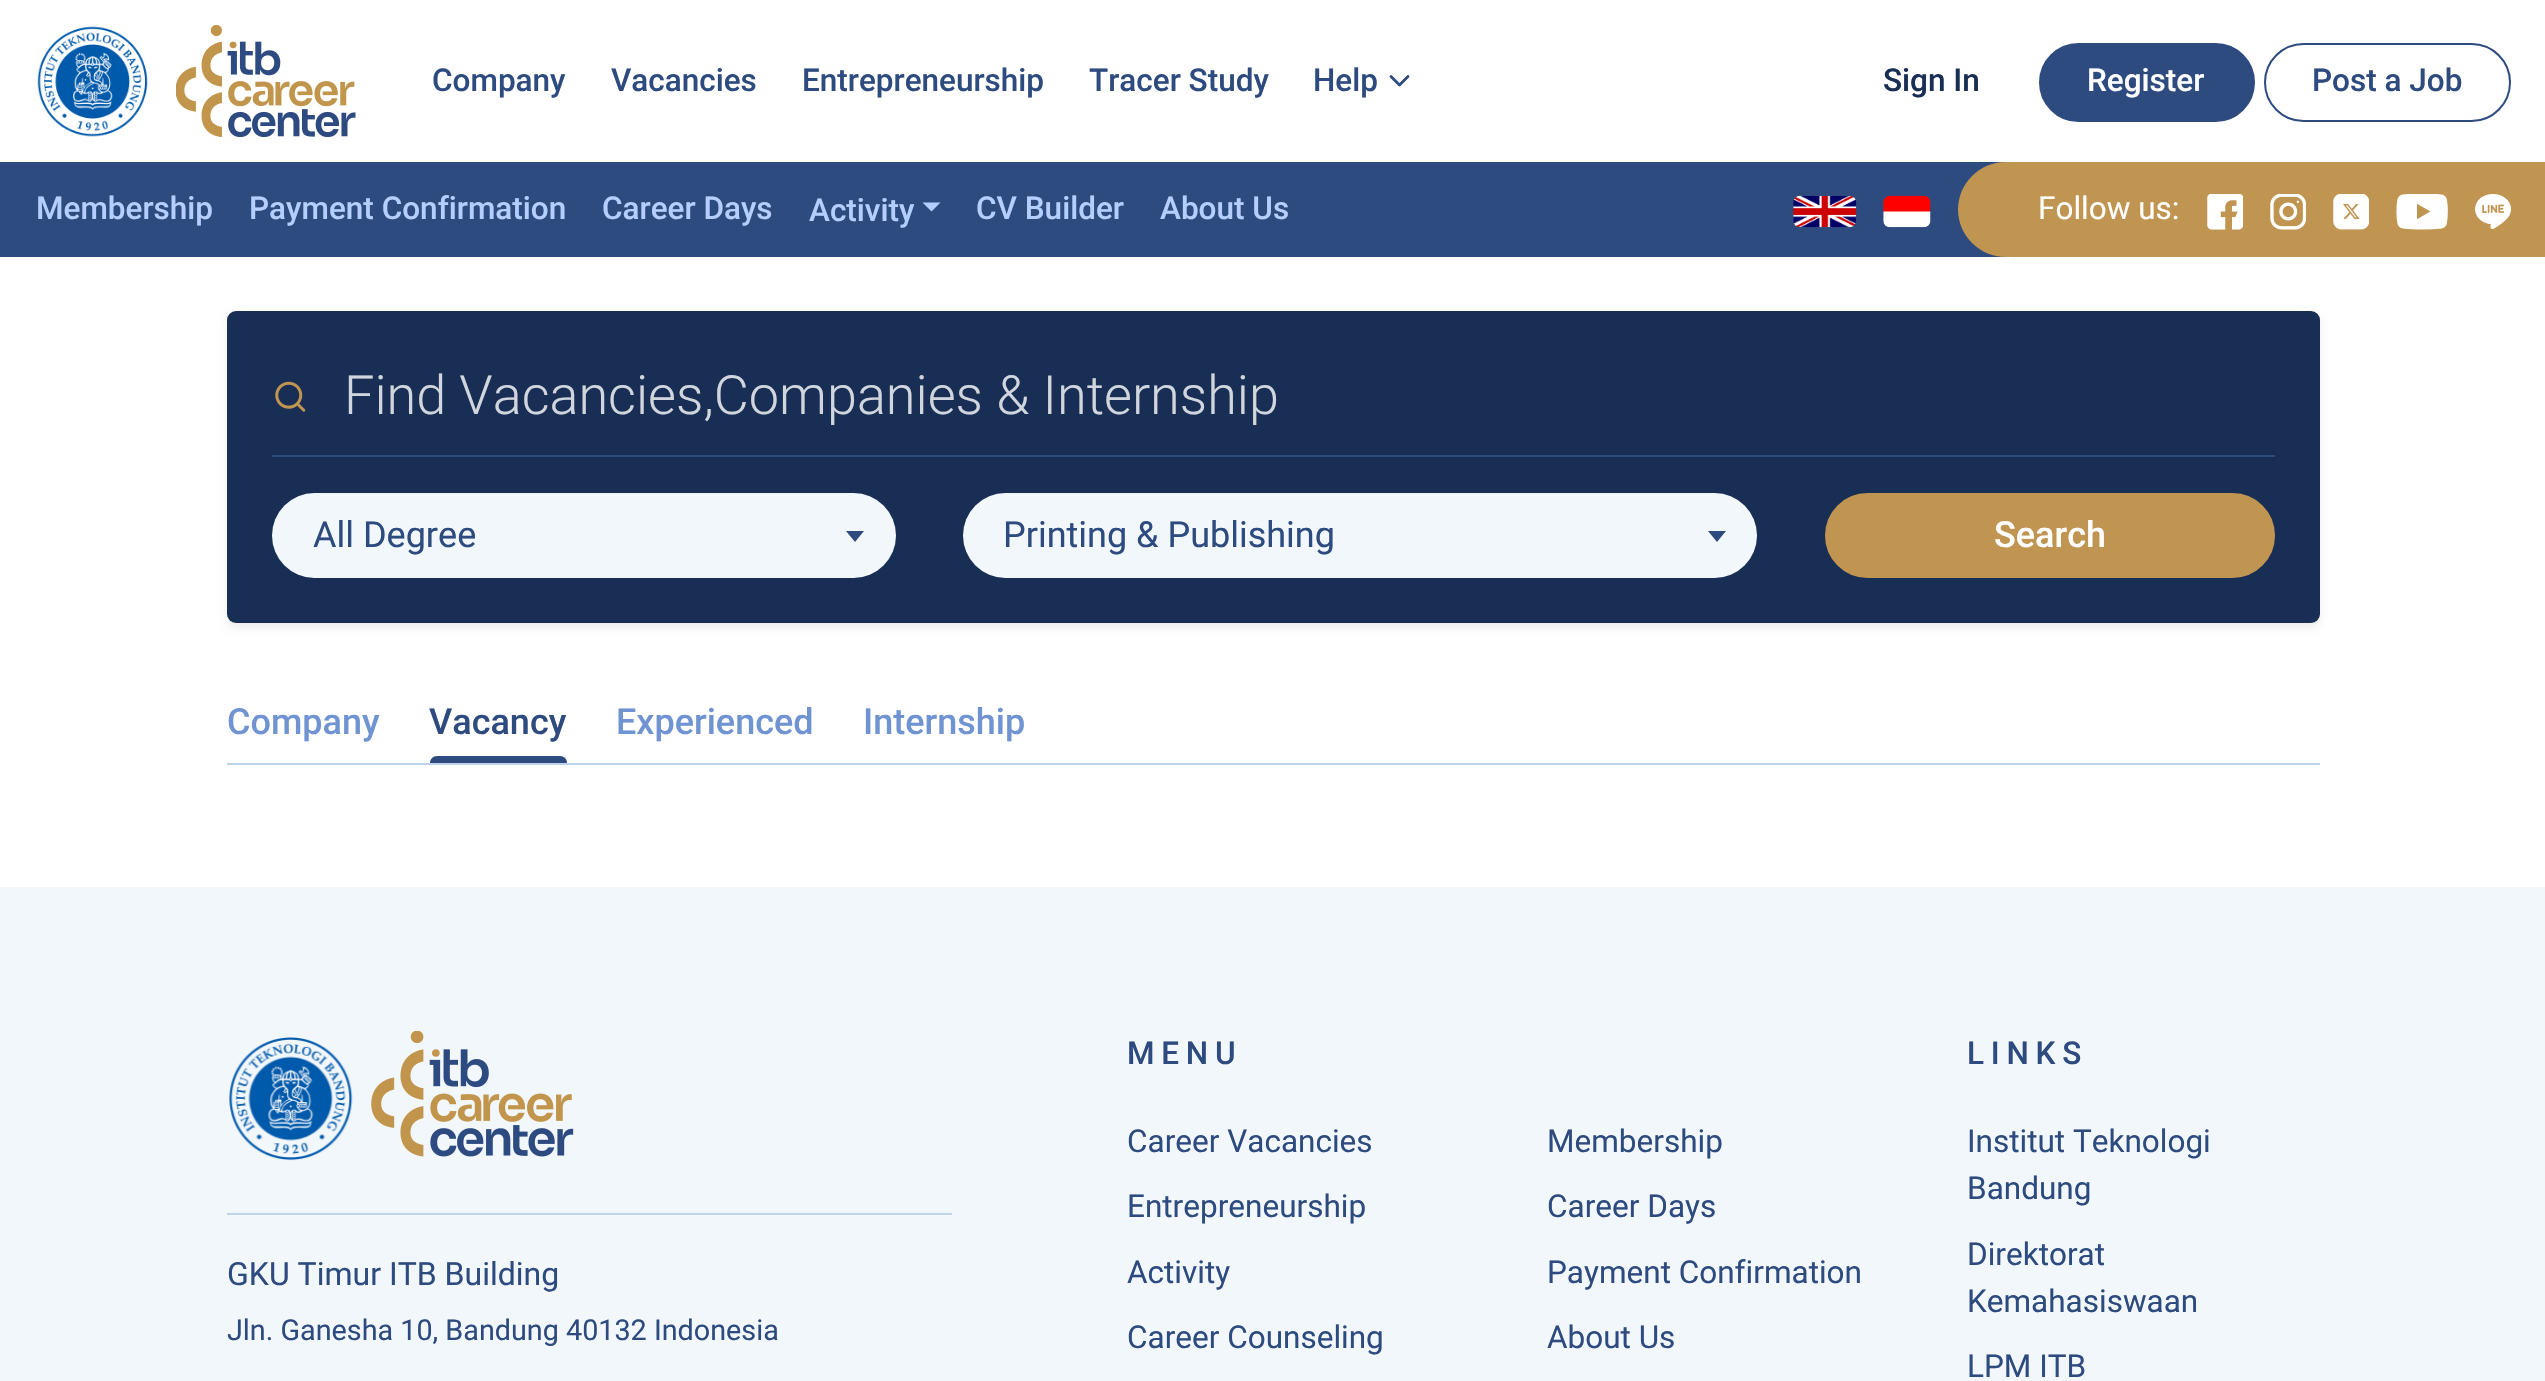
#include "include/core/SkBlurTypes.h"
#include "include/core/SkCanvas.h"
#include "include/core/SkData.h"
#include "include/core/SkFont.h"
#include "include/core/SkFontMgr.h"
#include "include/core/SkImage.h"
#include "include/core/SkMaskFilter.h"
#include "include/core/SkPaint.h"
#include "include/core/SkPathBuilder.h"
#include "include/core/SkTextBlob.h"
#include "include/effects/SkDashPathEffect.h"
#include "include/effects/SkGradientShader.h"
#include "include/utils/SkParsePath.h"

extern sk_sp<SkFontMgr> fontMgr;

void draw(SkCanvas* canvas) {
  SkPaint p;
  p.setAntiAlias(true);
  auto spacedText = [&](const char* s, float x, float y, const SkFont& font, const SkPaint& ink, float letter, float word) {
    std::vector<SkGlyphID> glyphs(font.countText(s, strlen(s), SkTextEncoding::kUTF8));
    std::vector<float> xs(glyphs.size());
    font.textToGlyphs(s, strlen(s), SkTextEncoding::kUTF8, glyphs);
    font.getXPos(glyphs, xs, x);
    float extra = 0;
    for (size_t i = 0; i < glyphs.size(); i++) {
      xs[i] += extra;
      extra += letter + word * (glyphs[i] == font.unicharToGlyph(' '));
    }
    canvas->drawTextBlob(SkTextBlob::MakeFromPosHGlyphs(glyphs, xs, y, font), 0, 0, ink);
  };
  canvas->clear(SK_ColorWHITE);
  canvas->drawImageRect(SkImages::DeferredFromEncodedData(SkData::MakeFromFileName("images/1.png")), SkRect::MakeLTRB(37, 26, 148, 137), SkSamplingOptions());
  canvas->drawImageRect(SkImages::DeferredFromEncodedData(SkData::MakeFromFileName("images/2.png")), SkRect::MakeLTRB(176, 25, 356, 137), SkSamplingOptions());
  p.setStyle(SkPaint::kStroke_Style);
  p.setStrokeWidth(2.8f);
  p.setStrokeCap(SkPaint::kRound_Cap);
  p.setStrokeJoin(SkPaint::kRound_Join);
  p.setColor(SkColorSetRGB(45, 74, 129));
  canvas->drawPath(SkPathBuilder().moveTo(1391, 76.5f).lineTo(1399.5f, 85).lineTo(1408, 76.5f).detach(), p);
  p.setStyle(SkPaint::kFill_Style);
  p.setColor(SkColorSetRGB(46, 75, 127));
  canvas->drawRoundRect(SkRect::MakeLTRB(2040, 44, 2254, 121), 38.5f, 38.5f, p);
  p.setStyle(SkPaint::kStroke_Style);
  p.setStrokeWidth(2);
  p.setStrokeCap(SkPaint::kButt_Cap);
  p.setStrokeJoin(SkPaint::kMiter_Join);
  canvas->drawRoundRect(SkRect::MakeLTRB(2040, 44, 2254, 121), 38.5f, 38.5f, p);
  canvas->drawRoundRect(SkRect::MakeLTRB(2265, 44, 2510, 121), 38.5f, 38.5f, p);
  p.setStyle(SkPaint::kFill_Style);
  canvas->drawRect(SkRect::MakeLTRB(0, 162, 2005, 257), p);
  p.setColor(SkColorSetRGB(180, 206, 255));
  canvas->drawPath(SkPathBuilder().moveTo(922.5f, 202.5f).lineTo(940.5f, 202.5f).lineTo(931.5f, 211.5f).close().detach(), p);
  canvas->drawImageRect(SkImages::DeferredFromEncodedData(SkData::MakeFromFileName("images/3.png")), SkRect::MakeLTRB(1793, 195, 1857, 228), SkSamplingOptions());
  canvas->drawImageRect(SkImages::DeferredFromEncodedData(SkData::MakeFromFileName("images/4.png")), SkRect::MakeLTRB(1883, 195, 1931, 228), SkSamplingOptions());
  p.setColor(SkColorSetRGB(192, 148, 81));
  canvas->drawPath(SkPathBuilder().moveTo(2005.5f, 162).lineTo(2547, 162).lineTo(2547, 257).lineTo(2005.5f, 257).cubicTo(1979.5f, 257, 1958, 235.5f, 1958, 209.5f).cubicTo(1958, 183.5f, 1979.5f, 162, 2005.5f, 162).close().detach(), p);
  canvas->drawImageRect(SkImages::DeferredFromEncodedData(SkData::MakeFromFileName("images/5.png")), SkRect::MakeLTRB(2207, 194, 2243, 230), SkSamplingOptions());
  canvas->drawImageRect(SkImages::DeferredFromEncodedData(SkData::MakeFromFileName("images/6.png")), SkRect::MakeLTRB(2270, 194, 2306, 230), SkSamplingOptions());
  canvas->drawImageRect(SkImages::DeferredFromEncodedData(SkData::MakeFromFileName("images/7.png")), SkRect::MakeLTRB(2333, 194, 2369, 230), SkSamplingOptions());
  canvas->drawImageRect(SkImages::DeferredFromEncodedData(SkData::MakeFromFileName("images/8.png")), SkRect::MakeLTRB(2396, 194, 2448, 230), SkSamplingOptions());
  canvas->drawImageRect(SkImages::DeferredFromEncodedData(SkData::MakeFromFileName("images/9.png")), SkRect::MakeLTRB(2475, 194, 2511, 229), SkSamplingOptions());
  p.setColor(SkColorSetARGB(18, 0, 0, 0));
  p.setMaskFilter(SkMaskFilter::MakeBlur(kNormal_SkBlurStyle, 4.5f));
  canvas->drawRoundRect(SkRect::MakeLTRB(227, 315, 2320, 628), 9, 9, p);
  p.setMaskFilter(nullptr);
  p.setColor(SkColorSetRGB(25, 46, 84));
  canvas->drawRoundRect(SkRect::MakeLTRB(227, 311, 2320, 623), 9, 9, p);
  canvas->drawImageRect(SkImages::DeferredFromEncodedData(SkData::MakeFromFileName("images/10.png")), SkRect::MakeLTRB(275, 381, 306, 412), SkSamplingOptions());
  p.setColor(SkColorSetRGB(46, 75, 127));
  canvas->drawRect(SkRect::MakeLTRB(272, 455, 2275, 457), p);
  p.setColor(SkColorSetRGB(242, 247, 252));
  canvas->drawRoundRect(SkRect::MakeLTRB(272, 493, 896, 578), 42.5f, 42.5f, p);
  p.setColor(SkColorSetRGB(46, 75, 127));
  canvas->drawPath(SkPathBuilder().moveTo(846, 531).lineTo(864, 531).lineTo(855, 542).close().detach(), p);
  p.setColor(SkColorSetRGB(242, 247, 252));
  canvas->drawRoundRect(SkRect::MakeLTRB(963, 493, 1757, 578), 42.5f, 42.5f, p);
  p.setColor(SkColorSetRGB(46, 75, 127));
  canvas->drawPath(SkPathBuilder().moveTo(1708, 531).lineTo(1726, 531).lineTo(1717, 542).close().detach(), p);
  p.setColor(SkColorSetRGB(192, 148, 81));
  canvas->drawRoundRect(SkRect::MakeLTRB(1826, 494, 2274, 577), 41.5f, 41.5f, p);
  p.setStyle(SkPaint::kStroke_Style);
  canvas->drawRoundRect(SkRect::MakeLTRB(1826, 494, 2274, 577), 41.5f, 41.5f, p);
  p.setStyle(SkPaint::kFill_Style);
  p.setColor(SkColorSetRGB(190, 212, 234));
  canvas->drawRect(SkRect::MakeLTRB(227, 763, 2320, 765), p);
  p.setColor(SkColorSetRGB(46, 75, 127));
  canvas->drawPath(SkPathBuilder().moveTo(437, 756).lineTo(560, 756).cubicTo(564, 756, 567, 759, 567, 763).lineTo(430, 763).cubicTo(430, 759, 433, 756, 437, 756).close().detach(), p);
  p.setColor(SkColorSetRGB(242, 247, 252));
  canvas->drawRect(SkRect::MakeLTRB(0, 887, 2545, 1381), p);
  canvas->drawImageRect(SkImages::DeferredFromEncodedData(SkData::MakeFromFileName("images/11.png")), SkRect::MakeLTRB(229, 1037, 353, 1161), SkSamplingOptions());
  canvas->drawImageRect(SkImages::DeferredFromEncodedData(SkData::MakeFromFileName("images/12.png")), SkRect::MakeLTRB(371, 1031, 574, 1157), SkSamplingOptions());
  p.setColor(SkColorSetRGB(190, 212, 234));
  canvas->drawRect(SkRect::MakeLTRB(227, 1213, 952, 1215), p);
  SkFont font1(fontMgr->matchFamilyStyle("Roboto", SkFontStyle(500, SkFontStyle::kNormal_Width, SkFontStyle::kUpright_Slant)), 31.5f);
  font1.setSubpixel(true);
  p.setColor(SkColorSetRGB(46, 75, 127));
  canvas->drawString("Company", 432, 91, font1, p);
  canvas->drawString("Vacancies", 611, 91, font1, p);
  canvas->drawString("Entrepreneurship", 802, 91, font1, p);
  canvas->drawString("Tracer Study", 1089, 91, font1, p);
  canvas->drawString("Help", 1313, 91, font1, p);
  p.setColor(SkColorSetRGB(25, 46, 84));
  canvas->drawString("Sign In", 1883, 91, font1, p);
  p.setColor(SK_ColorWHITE);
  canvas->drawString("Register", 2087, 91, font1, p);
  p.setColor(SkColorSetRGB(46, 75, 127));
  canvas->drawString("Post a Job", 2312, 91, font1, p);
  p.setColor(SkColorSetRGB(180, 206, 255));
  canvas->drawString("Membership", 36, 219, font1, p);
  canvas->drawString("Payment Confirmation", 249, 219, font1, p);
  canvas->drawString("Career Days", 602, 219, font1, p);
  canvas->drawString("Activity", 809, 221, font1, p);
  canvas->drawString("CV Builder", 976, 219, font1, p);
  canvas->drawString("About Us", 1160, 219, font1, p);
  SkFont font2(fontMgr->matchFamilyStyle("Roboto", SkFontStyle::Normal()), 31.5f);
  font2.setSubpixel(true);
  p.setColor(SK_ColorWHITE);
  canvas->drawString("Follow us:", 2038, 219, font2, p);
  SkFont font3(fontMgr->matchFamilyStyle("Roboto", SkFontStyle(300, SkFontStyle::kNormal_Width, SkFontStyle::kUpright_Slant)), 54);
  font3.setSubpixel(true);
  p.setColor(SkColorSetRGB(209, 213, 221));
  canvas->drawString("Find Vacancies,Companies & Internship", 344, 414, font3, p);
  SkFont font4(fontMgr->matchFamilyStyle("Roboto", SkFontStyle::Normal()), 36);
  font4.setSubpixel(true);
  p.setColor(SkColorSetRGB(46, 75, 127));
  canvas->drawString("All Degree", 313, 547, font4, p);
  canvas->drawString("Printing & Publishing", 1003, 547, font4, p);
  SkFont font5(fontMgr->matchFamilyStyle("Roboto", SkFontStyle(500, SkFontStyle::kNormal_Width, SkFontStyle::kUpright_Slant)), 36);
  font5.setSubpixel(true);
  p.setColor(SK_ColorWHITE);
  canvas->drawString("Search", 1994, 547, font5, p);
  p.setColor(SkColorSetRGB(112, 148, 210));
  canvas->drawString("Company", 227, 734, font5, p);
  p.setColor(SkColorSetRGB(46, 75, 127));
  canvas->drawString("Vacancy", 429, 734, font5, p);
  p.setColor(SkColorSetRGB(112, 148, 210));
  canvas->drawString("Experienced", 616, 734, font5, p);
  canvas->drawString("Internship", 863, 734, font5, p);
  SkFont font6(fontMgr->matchFamilyStyle("Roboto", SkFontStyle::Normal()), 32);
  font6.setSubpixel(true);
  p.setColor(SkColorSetRGB(46, 75, 127));
  canvas->drawString("GKU Timur ITB Building", 227, 1285, font6, p);
  SkFont font7(fontMgr->matchFamilyStyle("Roboto", SkFontStyle::Normal()), 28.75f);
  font7.setSubpixel(true);
  canvas->drawString("Jln. Ganesha 10, Bandung 40132 Indonesia", 227, 1340, font7, p);
  spacedText("MENU", 1127, 1064, font1, p, 6.75f, 0);
  canvas->drawString("Career Vacancies", 1127, 1152, font2, p);
  canvas->drawString("Entrepreneurship", 1127, 1217, font2, p);
  canvas->drawString("Activity", 1127, 1283, font2, p);
  canvas->drawString("Career Counseling", 1127, 1348, font2, p);
  canvas->drawString("Membership", 1547, 1152, font2, p);
  canvas->drawString("Career Days", 1547, 1217, font2, p);
  canvas->drawString("Payment Confirmation", 1547, 1283, font2, p);
  canvas->drawString("About Us", 1547, 1348, font2, p);
  spacedText("LINKS", 1967, 1064, font1, p, 6.75f, 0);
  canvas->drawString("Institut Teknologi", 1967, 1152, font2, p);
  canvas->drawString("Bandung", 1967, 1199, font2, p);
  canvas->drawString("Direktorat", 1967, 1265, font2, p);
  canvas->drawString("Kemahasiswaan", 1967, 1312, font2, p);
  canvas->drawString("LPM ITB", 1967, 1377, font2, p);
}
